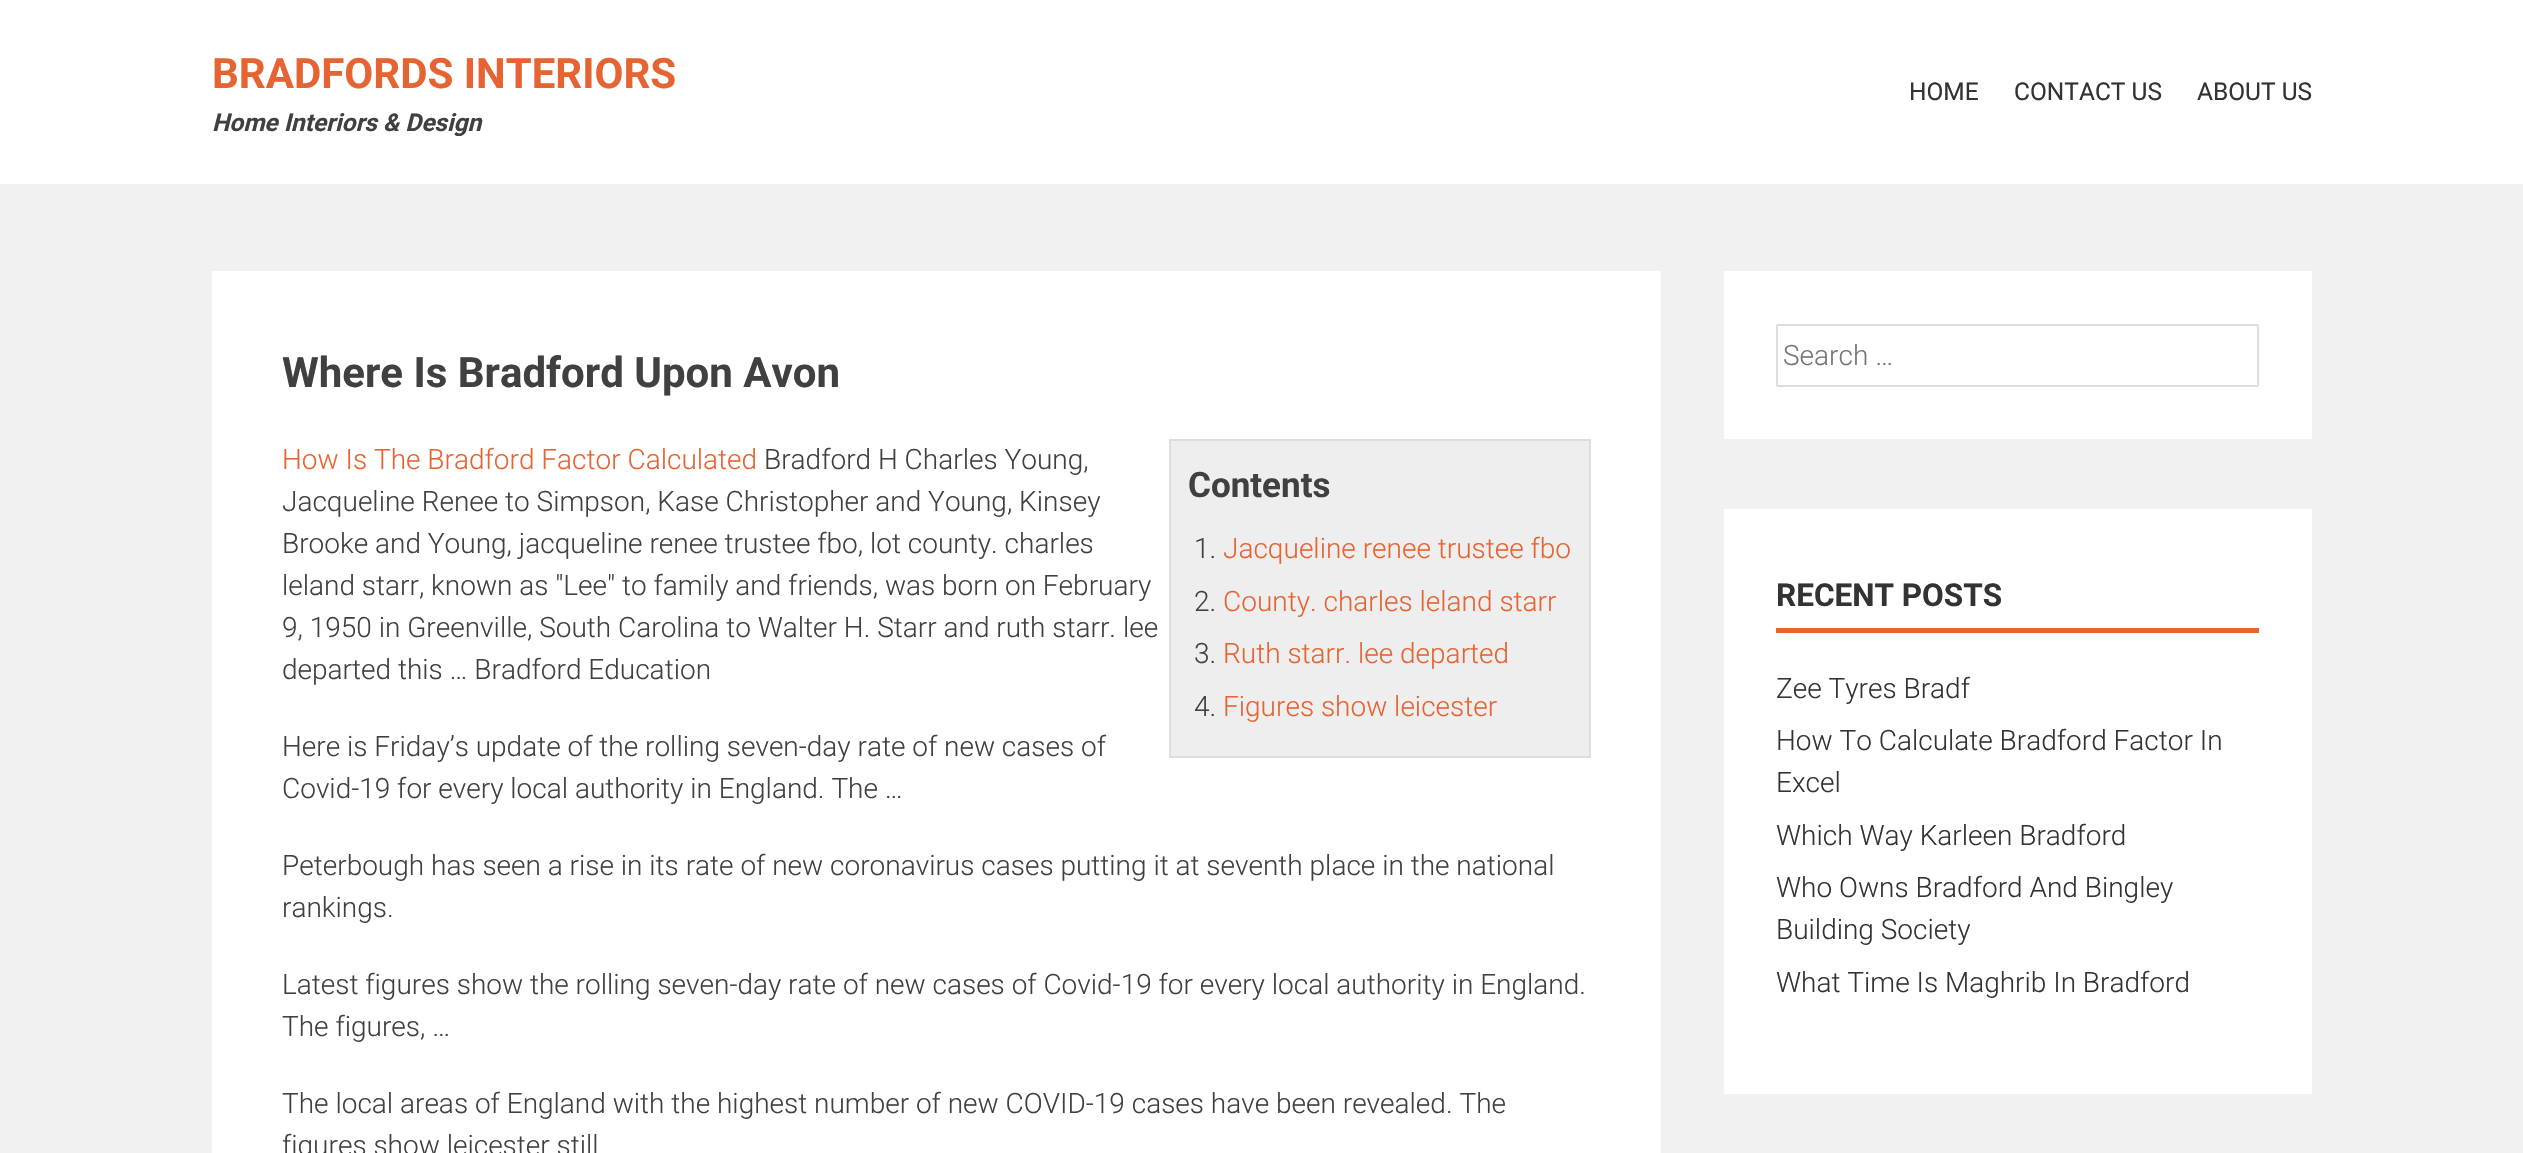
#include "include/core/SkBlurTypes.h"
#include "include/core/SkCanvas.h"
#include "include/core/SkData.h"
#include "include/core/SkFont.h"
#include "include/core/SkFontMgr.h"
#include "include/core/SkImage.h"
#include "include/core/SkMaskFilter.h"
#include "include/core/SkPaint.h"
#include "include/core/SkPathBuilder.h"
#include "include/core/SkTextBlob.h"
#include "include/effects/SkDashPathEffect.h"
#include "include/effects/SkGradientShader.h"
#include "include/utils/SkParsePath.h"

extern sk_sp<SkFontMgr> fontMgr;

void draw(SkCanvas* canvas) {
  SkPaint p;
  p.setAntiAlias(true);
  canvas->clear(SkColorSetRGB(241, 241, 241));
  p.setColor(SK_ColorWHITE);
  canvas->drawRect(SkRect::MakeLTRB(0, 0, 2523, 184), p);
  canvas->drawRect(SkRect::MakeLTRB(212, 271, 1661, 1153), p);
  p.setColor(SkColorSetRGB(238, 238, 238));
  canvas->drawRect(SkRect::MakeLTRB(1170, 440, 1590, 757), p);
  p.setStyle(SkPaint::kStroke_Style);
  p.setStrokeWidth(2);
  p.setColor(SkColorSetRGB(221, 221, 221));
  canvas->drawRect(SkRect::MakeLTRB(1170, 440, 1590, 757), p);
  p.setStyle(SkPaint::kFill_Style);
  p.setColor(SK_ColorWHITE);
  canvas->drawRect(SkRect::MakeLTRB(1724, 271, 2312, 439), p);
  p.setStyle(SkPaint::kStroke_Style);
  p.setColor(SkColorSetRGB(221, 221, 221));
  canvas->drawRoundRect(SkRect::MakeLTRB(1777, 325, 2258, 386), 1, 1, p);
  p.setStyle(SkPaint::kFill_Style);
  p.setColor(SK_ColorWHITE);
  canvas->drawRect(SkRect::MakeLTRB(1724, 509, 2312, 1094), p);
  p.setColor(SkColorSetRGB(230, 100, 50));
  canvas->drawRect(SkRect::MakeLTRB(1776, 628, 2259, 633), p);
  SkFont font1(fontMgr->matchFamilyStyle("Roboto", SkFontStyle::Bold()), 42);
  font1.setSubpixel(true);
  canvas->drawString("BRADFORDS INTERIORS", 212, 88, font1, p);
  SkFont font2(fontMgr->matchFamilyStyle("Roboto", SkFontStyle::BoldItalic()), 24.5f);
  font2.setSubpixel(true);
  p.setColor(SkColorSetRGB(64, 64, 64));
  canvas->drawString("Home Interiors & Design", 212, 131, font2, p);
  SkFont font3(fontMgr->matchFamilyStyle("Roboto", SkFontStyle::Normal()), 24.5f);
  font3.setSubpixel(true);
  p.setColor(SkColorSetRGB(51, 51, 51));
  canvas->drawString("HOME", 1909, 100, font3, p);
  canvas->drawString("CONTACT US", 2014, 100, font3, p);
  canvas->drawString("ABOUT US", 2197, 100, font3, p);
  p.setColor(SkColorSetRGB(64, 64, 64));
  canvas->drawString("Where Is Bradford Upon Avon", 282, 387, font1, p);
  SkFont font4(fontMgr->matchFamilyStyle("Roboto", SkFontStyle(300, SkFontStyle::kNormal_Width, SkFontStyle::kUpright_Slant)), 28);
  font4.setSubpixel(true);
  p.setColor(SkColorSetRGB(230, 100, 50));
  canvas->drawString("How Is The Bradford Factor Calculated", 282, 469, font4, p);
  p.setColor(SkColorSetRGB(64, 64, 64));
  canvas->drawString("Bradford H Charles Young,", 764, 469, font4, p);
  canvas->drawString("Jacqueline Renee to Simpson, Kase Christopher and Young, Kinsey", 282, 511, font4, p);
  canvas->drawString("Brooke and Young, jacqueline renee trustee fbo, lot county. charles", 282, 553, font4, p);
  canvas->drawString("leland starr, known as \"Lee\" to family and friends, was born on February", 282, 595, font4, p);
  canvas->drawString("9, 1950 in Greenville, South Carolina to Walter H. Starr and ruth starr. lee", 282, 637, font4, p);
  canvas->drawString("departed this … Bradford Education", 282, 679, font4, p);
  SkFont font5(fontMgr->matchFamilyStyle("Roboto", SkFontStyle::Bold()), 35);
  font5.setSubpixel(true);
  canvas->drawString("Contents", 1188, 497, font5, p);
  canvas->drawString("1.", 1194, 558, font4, p);
  p.setColor(SkColorSetRGB(230, 100, 50));
  canvas->drawString("Jacqueline renee trustee fbo", 1223, 558, font4, p);
  p.setColor(SkColorSetRGB(64, 64, 64));
  canvas->drawString("2.", 1194, 611, font4, p);
  p.setColor(SkColorSetRGB(230, 100, 50));
  canvas->drawString("County. charles leland starr", 1223, 611, font4, p);
  p.setColor(SkColorSetRGB(64, 64, 64));
  canvas->drawString("3.", 1194, 663, font4, p);
  p.setColor(SkColorSetRGB(230, 100, 50));
  canvas->drawString("Ruth starr. lee departed", 1223, 663, font4, p);
  p.setColor(SkColorSetRGB(64, 64, 64));
  canvas->drawString("4.", 1194, 716, font4, p);
  p.setColor(SkColorSetRGB(230, 100, 50));
  canvas->drawString("Figures show leicester", 1223, 716, font4, p);
  p.setColor(SkColorSetRGB(64, 64, 64));
  canvas->drawString("Here is Friday’s update of the rolling seven-day rate of new cases of", 282, 756, font4, p);
  canvas->drawString("Covid-19 for every local authority in England. The …", 282, 798, font4, p);
  canvas->drawString("Peterbough has seen a rise in its rate of new coronavirus cases putting it at seventh place in the national", 282, 875, font4, p);
  canvas->drawString("rankings.", 282, 917, font4, p);
  canvas->drawString("Latest figures show the rolling seven-day rate of new cases of Covid-19 for every local authority in England.", 282, 994, font4, p);
  canvas->drawString("The figures, …", 282, 1036, font4, p);
  canvas->drawString("The local areas of England with the highest number of new COVID-19 cases have been revealed. The", 282, 1113, font4, p);
  canvas->drawString("figures show leicester still", 282, 1155, font4, p);
  p.setColor(SkColorSetRGB(117, 117, 117));
  canvas->drawString("Search …", 1783, 365, font4, p);
  SkFont font6(fontMgr->matchFamilyStyle("Roboto", SkFontStyle::Bold()), 31.5f);
  font6.setSubpixel(true);
  p.setColor(SkColorSetRGB(51, 51, 51));
  canvas->drawString("RECENT POSTS", 1776, 606, font6, p);
  canvas->drawString("Zee Tyres Bradf", 1776, 698, font4, p);
  canvas->drawString("How To Calculate Bradford Factor In", 1776, 750, font4, p);
  canvas->drawString("Excel", 1776, 792, font4, p);
  canvas->drawString("Which Way Karleen Bradford", 1776, 845, font4, p);
  canvas->drawString("Who Owns Bradford And Bingley", 1776, 897, font4, p);
  canvas->drawString("Building Society", 1776, 939, font4, p);
  canvas->drawString("What Time Is Maghrib In Bradford", 1776, 992, font4, p);
}
